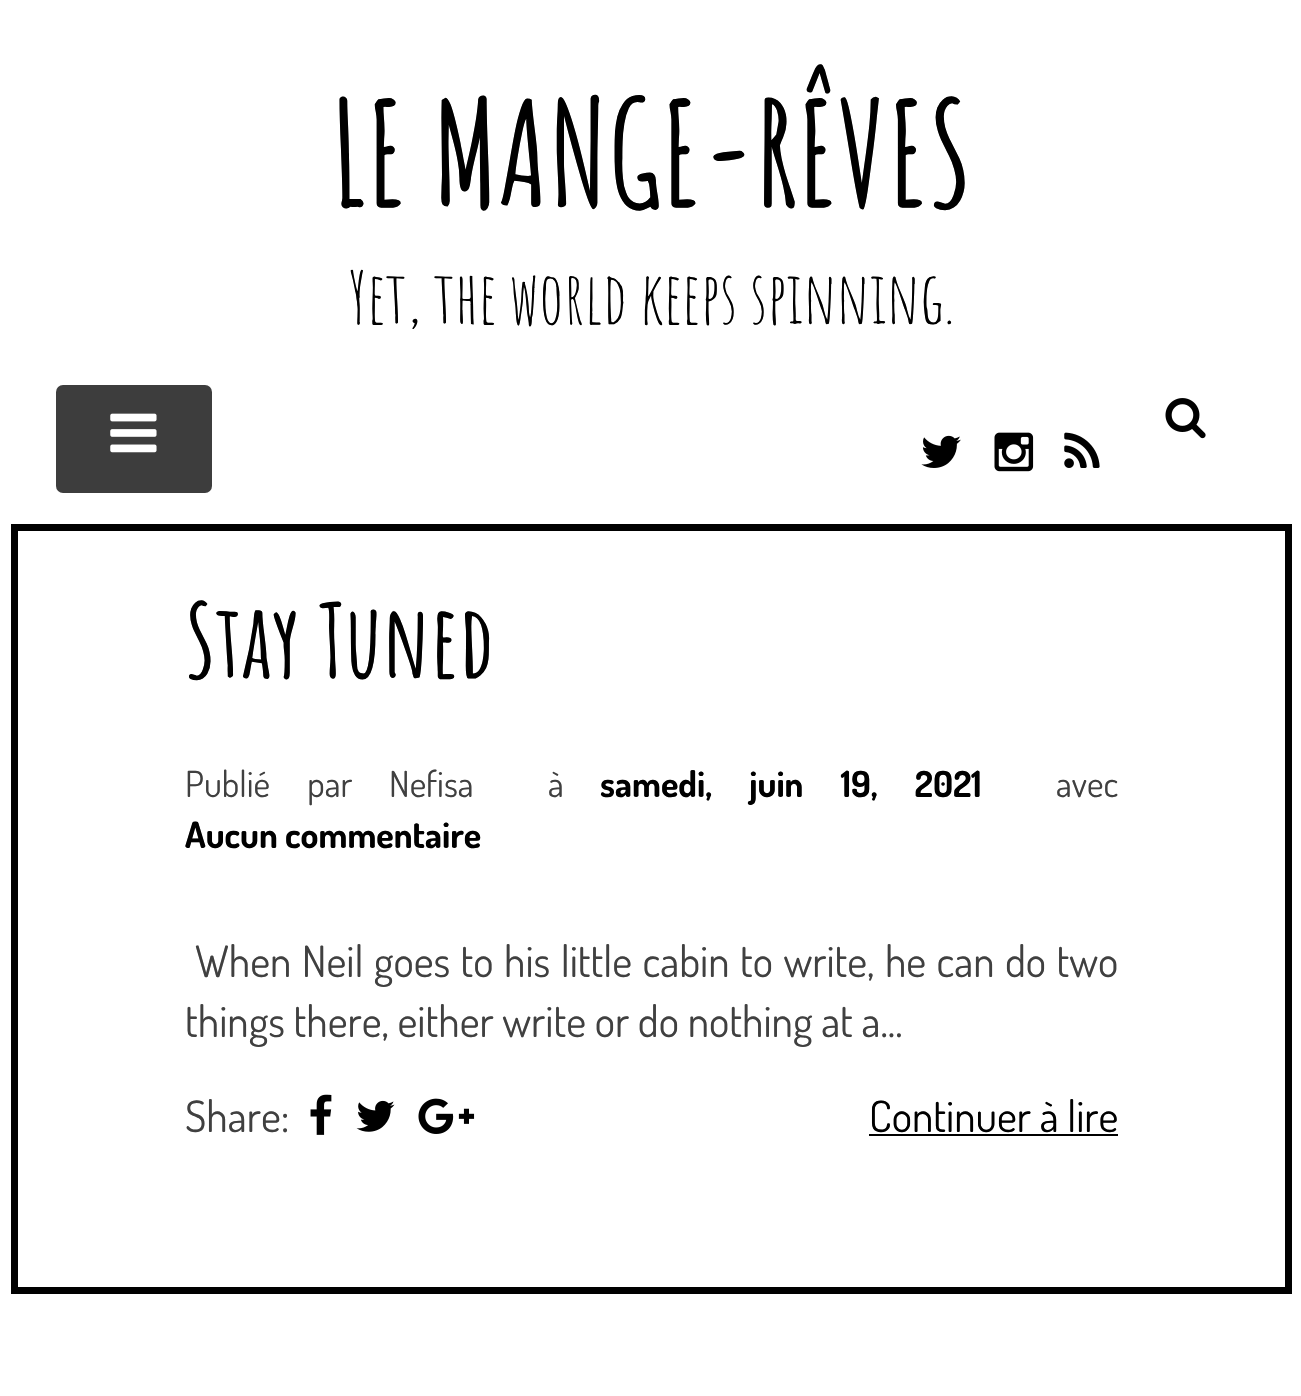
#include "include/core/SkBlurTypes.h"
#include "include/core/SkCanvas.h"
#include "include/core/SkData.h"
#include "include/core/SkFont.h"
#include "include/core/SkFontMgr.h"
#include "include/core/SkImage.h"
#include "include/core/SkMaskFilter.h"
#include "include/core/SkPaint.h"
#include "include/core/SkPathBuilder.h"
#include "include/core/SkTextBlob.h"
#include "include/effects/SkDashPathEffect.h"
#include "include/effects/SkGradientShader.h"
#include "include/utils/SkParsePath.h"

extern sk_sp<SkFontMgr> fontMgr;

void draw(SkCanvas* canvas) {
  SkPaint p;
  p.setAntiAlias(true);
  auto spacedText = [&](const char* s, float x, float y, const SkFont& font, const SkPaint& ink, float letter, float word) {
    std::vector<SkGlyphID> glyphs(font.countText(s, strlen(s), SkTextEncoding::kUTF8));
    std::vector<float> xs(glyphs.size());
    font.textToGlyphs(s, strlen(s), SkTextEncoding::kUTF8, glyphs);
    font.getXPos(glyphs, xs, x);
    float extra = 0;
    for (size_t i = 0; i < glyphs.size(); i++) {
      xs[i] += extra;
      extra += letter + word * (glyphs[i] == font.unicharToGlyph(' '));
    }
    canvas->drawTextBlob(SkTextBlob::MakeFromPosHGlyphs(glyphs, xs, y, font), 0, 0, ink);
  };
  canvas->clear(SK_ColorWHITE);
  p.setColor(SkColorSetRGB(61, 61, 61));
  canvas->drawRoundRect(SkRect::MakeLTRB(56, 385, 212, 493), 7, 7, p);
  canvas->drawImageRect(SkImages::DeferredFromEncodedData(SkData::MakeFromFileName("images/1.png")), SkRect::MakeLTRB(110, 413, 157, 453), SkSamplingOptions());
  canvas->drawImageRect(SkImages::DeferredFromEncodedData(SkData::MakeFromFileName("images/2.png")), SkRect::MakeLTRB(1165, 398, 1206, 439), SkSamplingOptions());
  canvas->drawImageRect(SkImages::DeferredFromEncodedData(SkData::MakeFromFileName("images/3.png")), SkRect::MakeLTRB(921, 435, 961, 468), SkSamplingOptions());
  canvas->drawImageRect(SkImages::DeferredFromEncodedData(SkData::MakeFromFileName("images/4.png")), SkRect::MakeLTRB(994, 432, 1034, 472), SkSamplingOptions());
  canvas->drawImageRect(SkImages::DeferredFromEncodedData(SkData::MakeFromFileName("images/5.png")), SkRect::MakeLTRB(1064, 432, 1100, 468), SkSamplingOptions());
  p.setStyle(SkPaint::kStroke_Style);
  p.setStrokeWidth(7);
  p.setColor(SK_ColorBLACK);
  canvas->drawRect(SkRect::MakeLTRB(14.5f, 527.5f, 1288.5f, 1290.5f), p);
  canvas->drawImageRect(SkImages::DeferredFromEncodedData(SkData::MakeFromFileName("images/6.png")), SkRect::MakeLTRB(310, 1094, 332, 1135), SkSamplingOptions());
  canvas->drawImageRect(SkImages::DeferredFromEncodedData(SkData::MakeFromFileName("images/7.png")), SkRect::MakeLTRB(356, 1100, 395, 1132), SkSamplingOptions());
  canvas->drawImageRect(SkImages::DeferredFromEncodedData(SkData::MakeFromFileName("images/8.png")), SkRect::MakeLTRB(418, 1098, 475, 1134), SkSamplingOptions());
  p.setStyle(SkPaint::kFill_Style);
  canvas->drawRect(SkRect::MakeLTRB(869, 1134, 1118, 1136), p);
  SkFont font1(fontMgr->matchFamilyStyle("Amatic SC", SkFontStyle::Bold()), 144);
  font1.setSubpixel(true);
  canvas->drawString("LE MANGE-RÊVES", 331, 207, font1, p);
  SkFont font2(fontMgr->matchFamilyStyle("Amatic SC", SkFontStyle::Normal()), 72);
  font2.setSubpixel(true);
  canvas->drawString("Yet, the world keeps spinning.", 349, 324, font2, p);
  SkFont font3(fontMgr->matchFamilyStyle("Amatic SC", SkFontStyle::Bold()), 101);
  font3.setSubpixel(true);
  canvas->drawString("Stay Tuned", 185, 678, font3, p);
  SkFont font4(fontMgr->matchFamilyStyle("Dosis", SkFontStyle::Normal()), 36);
  font4.setSubpixel(true);
  p.setColor(SkColorSetRGB(64, 64, 64));
  spacedText("Publié par", 185, 797, font4, p, 0, 30);
  canvas->drawString("Nefisa", 389, 797, font4, p);
  canvas->drawString("à", 548, 797, font4, p);
  SkFont font5(fontMgr->matchFamilyStyle("Dosis", SkFontStyle::Bold()), 36);
  font5.setSubpixel(true);
  p.setColor(SK_ColorBLACK);
  spacedText("samedi, juin 19, 2021", 600, 797, font5, p, 0, 30);
  p.setColor(SkColorSetRGB(64, 64, 64));
  canvas->drawString("avec", 1056, 797, font4, p);
  p.setColor(SK_ColorBLACK);
  canvas->drawString("Aucun commentaire", 185, 848, font5, p);
  SkFont font6(fontMgr->matchFamilyStyle("Dosis", SkFontStyle::Normal()), 43.2f);
  font6.setSubpixel(true);
  p.setColor(SkColorSetRGB(64, 64, 64));
  spacedText("When Neil goes to his little cabin to write, he can do two", 195, 977, font6, p, 0, 1.75f);
  canvas->drawString("things there, either write or do nothing at a...", 185, 1037, font6, p);
  canvas->drawString("Share:", 185, 1132, font6, p);
  p.setColor(SK_ColorBLACK);
  canvas->drawString("Continuer à lire", 869, 1132, font6, p);
}
